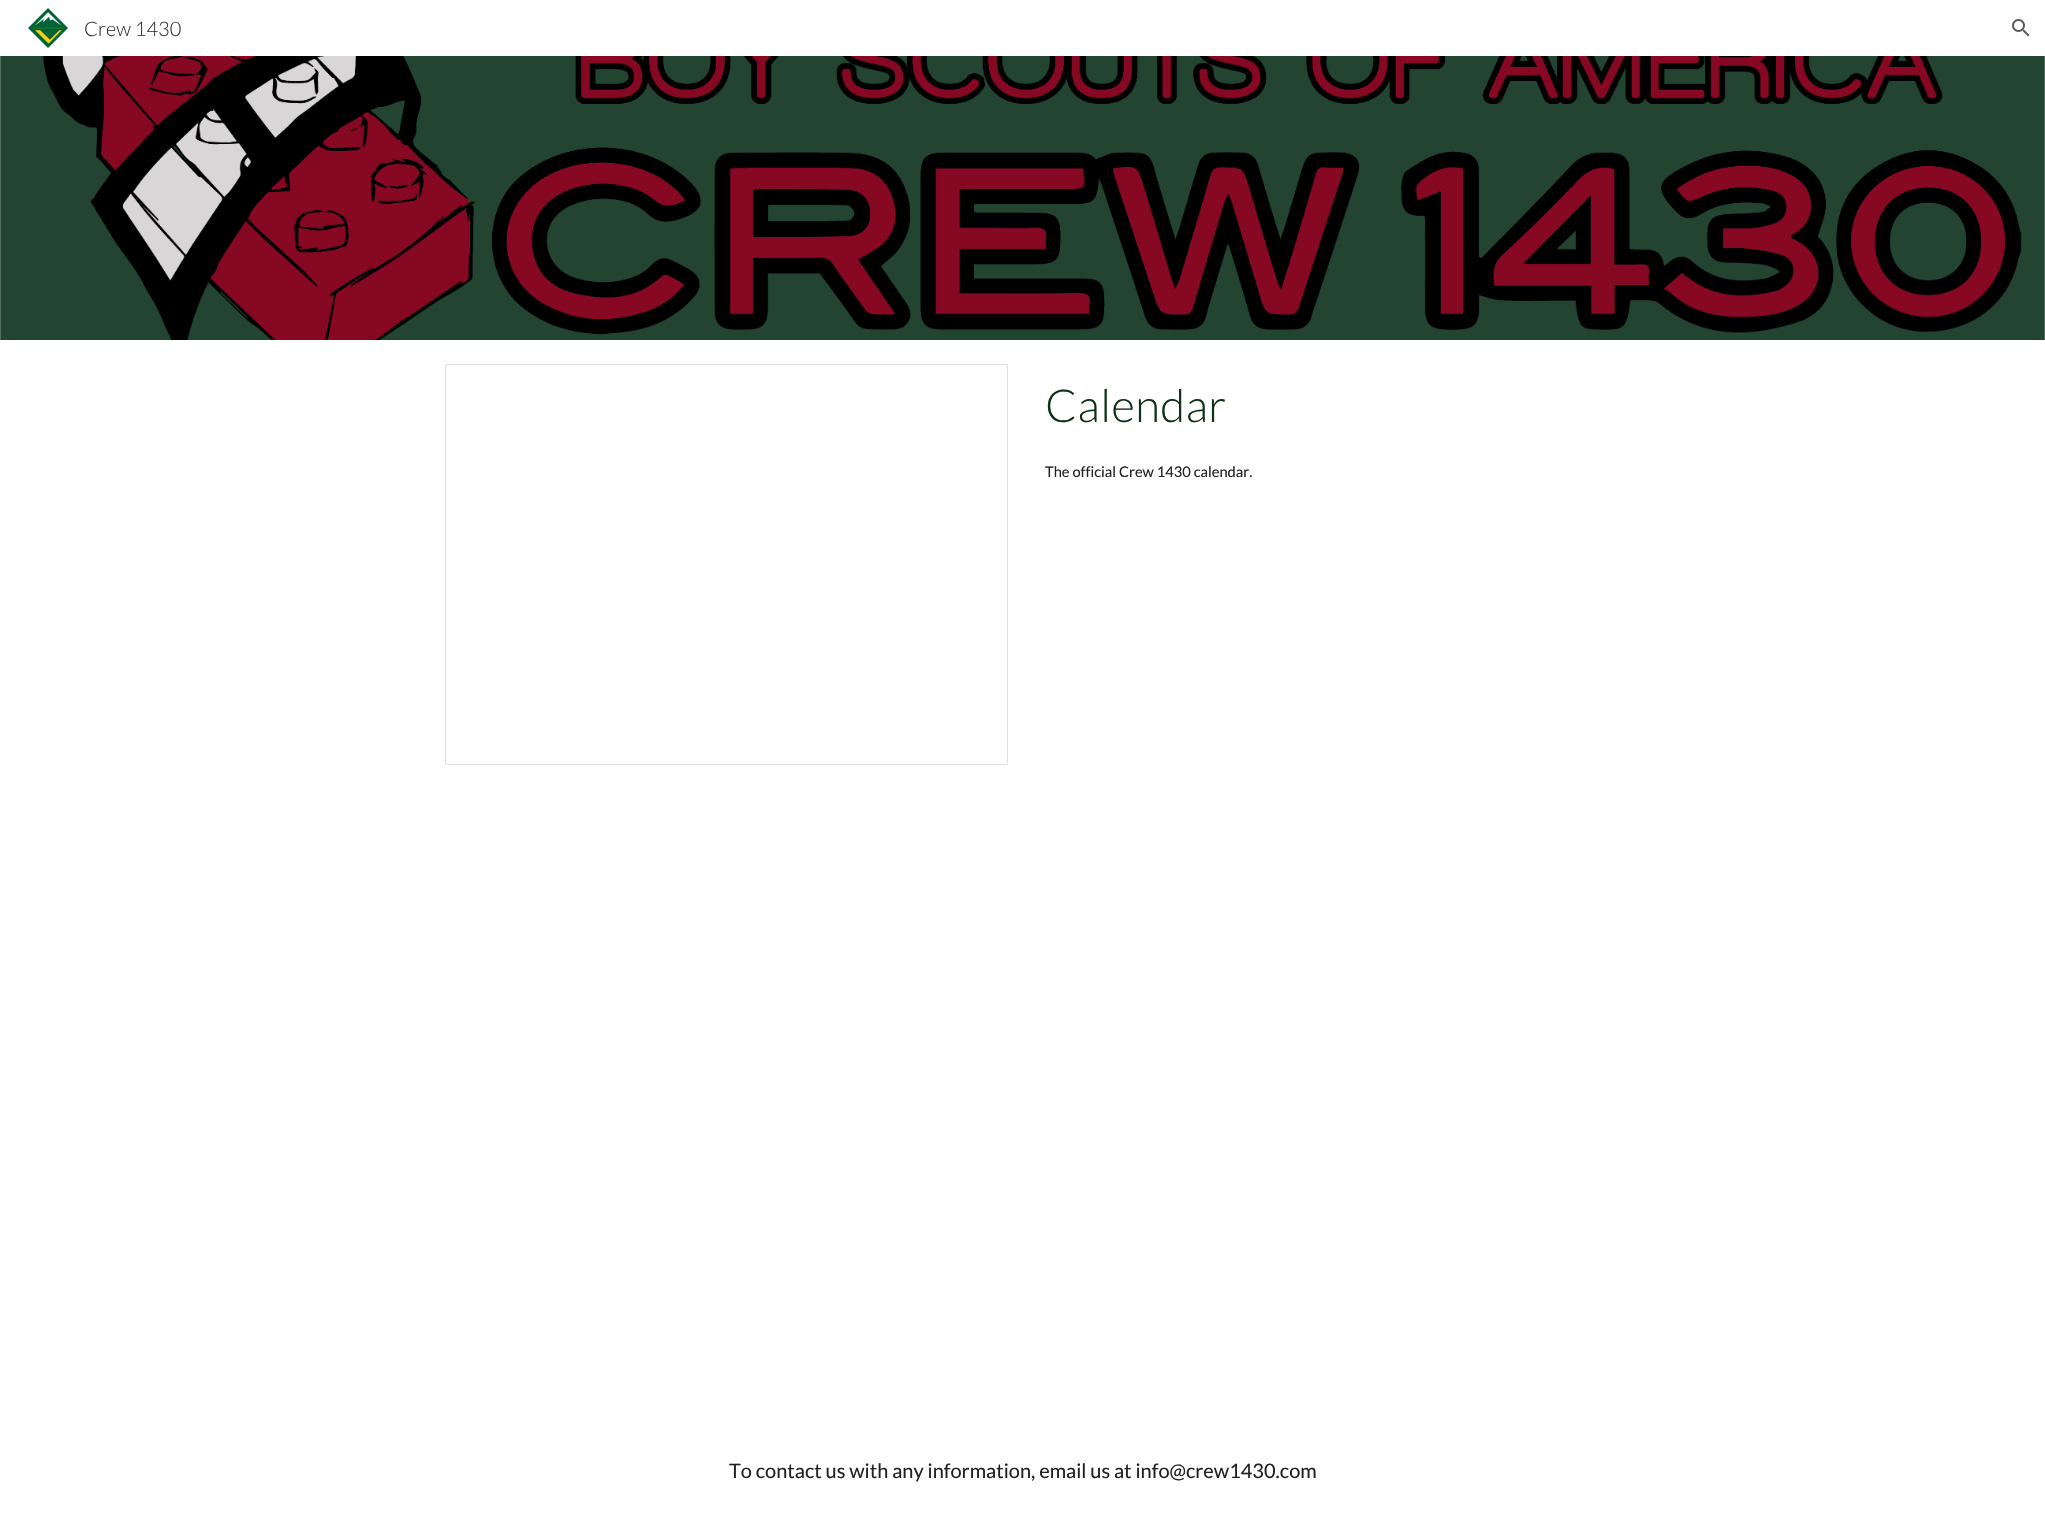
#include "include/core/SkBlurTypes.h"
#include "include/core/SkCanvas.h"
#include "include/core/SkData.h"
#include "include/core/SkFont.h"
#include "include/core/SkFontMgr.h"
#include "include/core/SkImage.h"
#include "include/core/SkMaskFilter.h"
#include "include/core/SkPaint.h"
#include "include/core/SkPathBuilder.h"
#include "include/core/SkTextBlob.h"
#include "include/effects/SkDashPathEffect.h"
#include "include/effects/SkGradientShader.h"
#include "include/utils/SkParsePath.h"

extern sk_sp<SkFontMgr> fontMgr;

void draw(SkCanvas* canvas) {
  SkPaint p;
  p.setAntiAlias(true);
  auto spacedText = [&](const char* s, float x, float y, const SkFont& font, const SkPaint& ink, float letter, float word) {
    std::vector<SkGlyphID> glyphs(font.countText(s, strlen(s), SkTextEncoding::kUTF8));
    std::vector<float> xs(glyphs.size());
    font.textToGlyphs(s, strlen(s), SkTextEncoding::kUTF8, glyphs);
    font.getXPos(glyphs, xs, x);
    float extra = 0;
    for (size_t i = 0; i < glyphs.size(); i++) {
      xs[i] += extra;
      extra += letter + word * (glyphs[i] == font.unicharToGlyph(' '));
    }
    canvas->drawTextBlob(SkTextBlob::MakeFromPosHGlyphs(glyphs, xs, y, font), 0, 0, ink);
  };
  canvas->clear(SK_ColorWHITE);
  canvas->drawImageRect(SkImages::DeferredFromEncodedData(SkData::MakeFromFileName("images/1.png")), SkRect::MakeLTRB(28, 8, 68, 48), SkSamplingOptions());
  canvas->drawImageRect(SkImages::DeferredFromEncodedData(SkData::MakeFromFileName("images/2.png")), SkRect::MakeLTRB(2012, 19, 2030, 37), SkSamplingOptions());
  canvas->drawImageRect(SkImages::DeferredFromEncodedData(SkData::MakeFromFileName("images/3.png")), SkRect::MakeLTRB(0, 56, 2045, 340), SkSamplingOptions());
  p.setStyle(SkPaint::kStroke_Style);
  p.setStrokeWidth(1);
  p.setColor(SkColorSetRGB(224, 224, 224));
  canvas->drawRoundRect(SkRect::MakeLTRB(445.5f, 364.5f, 1007.5f, 764.5f), 1.5f, 1.5f, p);
  SkFont font1(fontMgr->matchFamilyStyle("Lato", SkFontStyle(300, SkFontStyle::kNormal_Width, SkFontStyle::kUpright_Slant)), 20);
  font1.setSubpixel(true);
  p.setStyle(SkPaint::kFill_Style);
  p.setColor(SkColorSetRGB(51, 51, 51));
  canvas->drawString("Crew 1430", 84, 36, font1, p);
  SkFont font2(fontMgr->matchFamilyStyle("Lato", SkFontStyle(300, SkFontStyle::kNormal_Width, SkFontStyle::kUpright_Slant)), 45.5f);
  font2.setSubpixel(true);
  p.setColor(SkColorSetRGB(15, 49, 25));
  spacedText("Calendar", 1045, 422, font2, p, 0.5f, 0);
  SkFont font3(fontMgr->matchFamilyStyle("Lato", SkFontStyle::Normal()), 14.7f);
  font3.setSubpixel(true);
  p.setColor(SkColorSetRGB(33, 33, 33));
  canvas->drawString("The official Crew 1430 calendar.", 1045, 477, font3, p);
  SkFont font4(fontMgr->matchFamilyStyle("Lato", SkFontStyle::Normal()), 20);
  font4.setSubpixel(true);
  canvas->drawString("To contact us with any information, email us at info@crew1430.com", 729, 1478, font4, p);
}
